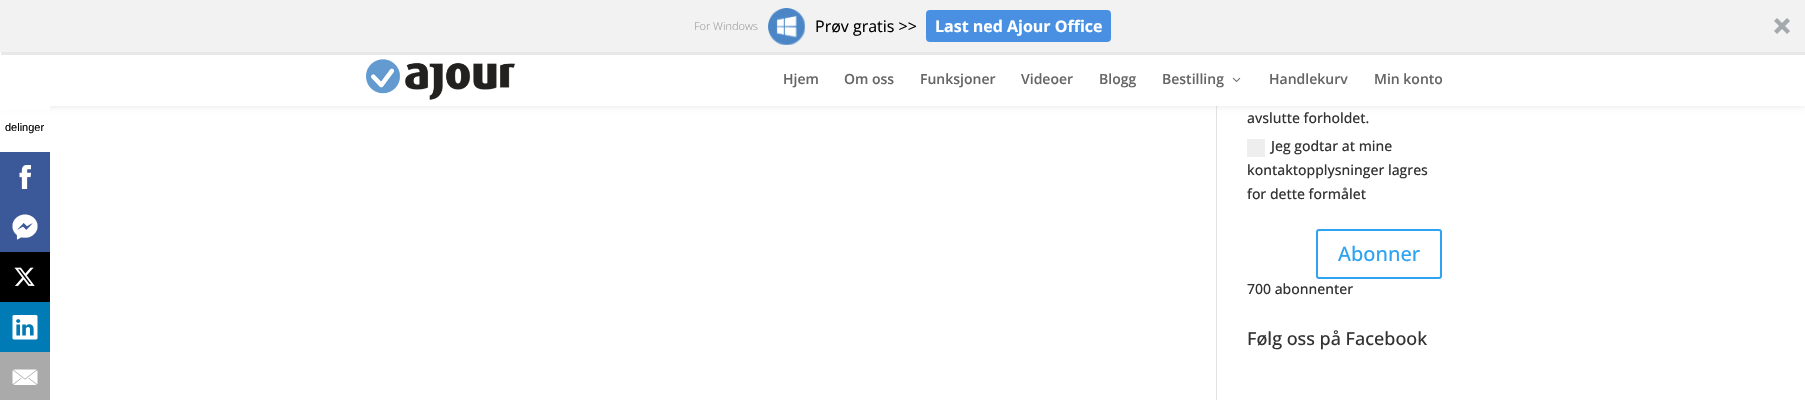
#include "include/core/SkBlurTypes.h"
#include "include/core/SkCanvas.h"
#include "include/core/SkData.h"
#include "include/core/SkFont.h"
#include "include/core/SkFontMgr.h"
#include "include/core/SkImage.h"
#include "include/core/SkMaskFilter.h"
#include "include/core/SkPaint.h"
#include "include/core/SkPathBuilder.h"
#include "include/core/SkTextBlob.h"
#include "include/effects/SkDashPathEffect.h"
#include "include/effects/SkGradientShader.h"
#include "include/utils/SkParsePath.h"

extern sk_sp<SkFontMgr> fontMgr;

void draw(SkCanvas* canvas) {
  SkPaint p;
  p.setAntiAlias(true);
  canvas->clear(SK_ColorWHITE);
  p.setColor(SkColorSetRGB(226, 226, 226));
  canvas->drawRect(SkRect::MakeLTRB(1216, 106, 1217, 400), p);
  p.setColor(SkColorSetARGB(26, 0, 0, 0));
  p.setMaskFilter(SkMaskFilter::MakeBlur(kNormal_SkBlurStyle, 3.5f));
  canvas->drawRect(SkRect::MakeLTRB(0, 52, 1805, 106), p);
  p.setMaskFilter(nullptr);
  p.setColor(SK_ColorWHITE);
  canvas->drawRect(SkRect::MakeLTRB(0, 52, 1805, 106), p);
  p.setColor(SkColorSetRGB(232, 232, 232));
  canvas->drawPath(SkPathBuilder().moveTo(1, 52).lineTo(1, 55).lineTo(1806, 55).lineTo(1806, 3).lineTo(1805, 3).lineTo(1805, 52).close().detach(), p);
  p.setColor(SkColorSetRGB(242, 242, 242));
  canvas->drawRect(SkRect::MakeLTRB(0, 0, 1805, 52), p);
  canvas->drawImageRect(SkImages::DeferredFromEncodedData(SkData::MakeFromFileName("images/1.png")), SkRect::MakeLTRB(768, 8, 805, 45), SkSamplingOptions());
  p.setColor(SkColorSetRGB(74, 144, 226));
  canvas->drawRoundRect(SkRect::MakeLTRB(926, 10, 1111, 42), 4, 4, p);
  canvas->drawImageRect(SkImages::DeferredFromEncodedData(SkData::MakeFromFileName("images/2.png")), SkRect::MakeLTRB(1774, 18, 1790, 34), SkSamplingOptions());
  p.setColor(SK_ColorWHITE);
  canvas->drawRect(SkRect::MakeLTRB(0, 106, 50, 110), p);
  p.setColor(SkColorSetRGB(59, 89, 152));
  canvas->drawRect(SkRect::MakeLTRB(0, 152, 50, 252), p);
  canvas->drawImageRect(SkImages::DeferredFromEncodedData(SkData::MakeFromFileName("images/3.png")), SkRect::MakeLTRB(19, 165, 31, 189), SkSamplingOptions());
  canvas->drawImageRect(SkImages::DeferredFromEncodedData(SkData::MakeFromFileName("images/4.png")), SkRect::MakeLTRB(12, 214, 38, 240), SkSamplingOptions());
  p.setColor(SK_ColorBLACK);
  canvas->drawRect(SkRect::MakeLTRB(0, 252, 50, 302), p);
  canvas->drawImageRect(SkImages::DeferredFromEncodedData(SkData::MakeFromFileName("images/5.png")), SkRect::MakeLTRB(14, 267, 35, 286), SkSamplingOptions());
  p.setColor(SkColorSetRGB(0, 123, 182));
  canvas->drawRect(SkRect::MakeLTRB(0, 302, 50, 352), p);
  canvas->drawImageRect(SkImages::DeferredFromEncodedData(SkData::MakeFromFileName("images/6.png")), SkRect::MakeLTRB(12, 315, 38, 340), SkSamplingOptions());
  p.setColor(SkColorSetRGB(170, 170, 170));
  canvas->drawRect(SkRect::MakeLTRB(0, 352, 50, 400), p);
  canvas->drawImageRect(SkImages::DeferredFromEncodedData(SkData::MakeFromFileName("images/7.png")), SkRect::MakeLTRB(12, 369, 38, 385), SkSamplingOptions());
  canvas->drawImageRect(SkImages::DeferredFromEncodedData(SkData::MakeFromFileName("images/8.png")), SkRect::MakeLTRB(366, 59, 515, 100), SkSamplingOptions());
  canvas->drawImageRect(SkImages::DeferredFromEncodedData(SkData::MakeFromFileName("images/9.png")), SkRect::MakeLTRB(1232, 77, 1241, 82), SkSamplingOptions());
  p.setColor(SkColorSetRGB(238, 238, 238));
  canvas->drawRect(SkRect::MakeLTRB(1247, 139, 1265, 157), p);
  p.setStyle(SkPaint::kStroke_Style);
  p.setStrokeWidth(2);
  p.setColor(SkColorSetRGB(46, 163, 242));
  canvas->drawRoundRect(SkRect::MakeLTRB(1317, 230, 1441, 278), 2, 2, p);
  SkFont font1(fontMgr->matchFamilyStyle("Open Sans", SkFontStyle(300, SkFontStyle::kNormal_Width, SkFontStyle::kUpright_Slant)), 11);
  font1.setSubpixel(true);
  p.setStyle(SkPaint::kFill_Style);
  p.setColor(SkColorSetRGB(155, 155, 155));
  canvas->drawString("For Windows", 694, 30, font1, p);
  SkFont font2(fontMgr->matchFamilyStyle("Open Sans", SkFontStyle::Normal()), 16);
  font2.setSubpixel(true);
  p.setColor(SK_ColorBLACK);
  canvas->drawString("Prøv gratis >>", 815, 32, font2, p);
  SkFont font3(fontMgr->matchFamilyStyle("Open Sans", SkFontStyle::Bold()), 16);
  font3.setSubpixel(true);
  p.setColor(SK_ColorWHITE);
  canvas->drawString("Last ned Ajour Office", 935, 32, font3, p);
  SkFont font4(fontMgr->matchFamilyStyle("Liberation Sans", SkFontStyle::Normal()), 11);
  font4.setSubpixel(true);
  p.setColor(SK_ColorBLACK);
  canvas->drawString("delinger", 5, 131, font4, p);
  SkFont font5(fontMgr->matchFamilyStyle("Open Sans", SkFontStyle(600, SkFontStyle::kNormal_Width, SkFontStyle::kUpright_Slant)), 14);
  font5.setSubpixel(true);
  p.setColor(SkColorSetRGB(102, 102, 102));
  canvas->drawString("Hjem", 783, 84, font5, p);
  canvas->drawString("Om oss", 844, 84, font5, p);
  canvas->drawString("Funksjoner", 920, 84, font5, p);
  canvas->drawString("Videoer", 1021, 84, font5, p);
  canvas->drawString("Blogg", 1099, 84, font5, p);
  canvas->drawString("Bestilling", 1162, 84, font5, p);
  canvas->drawString("Handlekurv", 1269, 84, font5, p);
  canvas->drawString("Min konto", 1374, 84, font5, p);
  SkFont font6(fontMgr->matchFamilyStyle("Open Sans", SkFontStyle(500, SkFontStyle::kNormal_Width, SkFontStyle::kUpright_Slant)), 14);
  font6.setSubpixel(true);
  p.setColor(SkColorSetRGB(51, 51, 51));
  canvas->drawString("avslutte forholdet.", 1247, 123, font6, p);
  canvas->drawString("Jeg godtar at mine", 1271, 151, font6, p);
  canvas->drawString("kontaktopplysninger lagres", 1247, 175, font6, p);
  canvas->drawString("for dette formålet", 1247, 199, font6, p);
  SkFont font7(fontMgr->matchFamilyStyle("Open Sans", SkFontStyle(500, SkFontStyle::kNormal_Width, SkFontStyle::kUpright_Slant)), 20);
  font7.setSubpixel(true);
  p.setColor(SkColorSetRGB(46, 163, 242));
  canvas->drawString("Abonner", 1338, 261, font7, p);
  p.setColor(SkColorSetRGB(51, 51, 51));
  canvas->drawString("700 abonnenter", 1247, 294, font6, p);
  SkFont font8(fontMgr->matchFamilyStyle("Open Sans", SkFontStyle(500, SkFontStyle::kNormal_Width, SkFontStyle::kUpright_Slant)), 18);
  font8.setSubpixel(true);
  canvas->drawString("Følg oss på Facebook", 1247, 345, font8, p);
}
